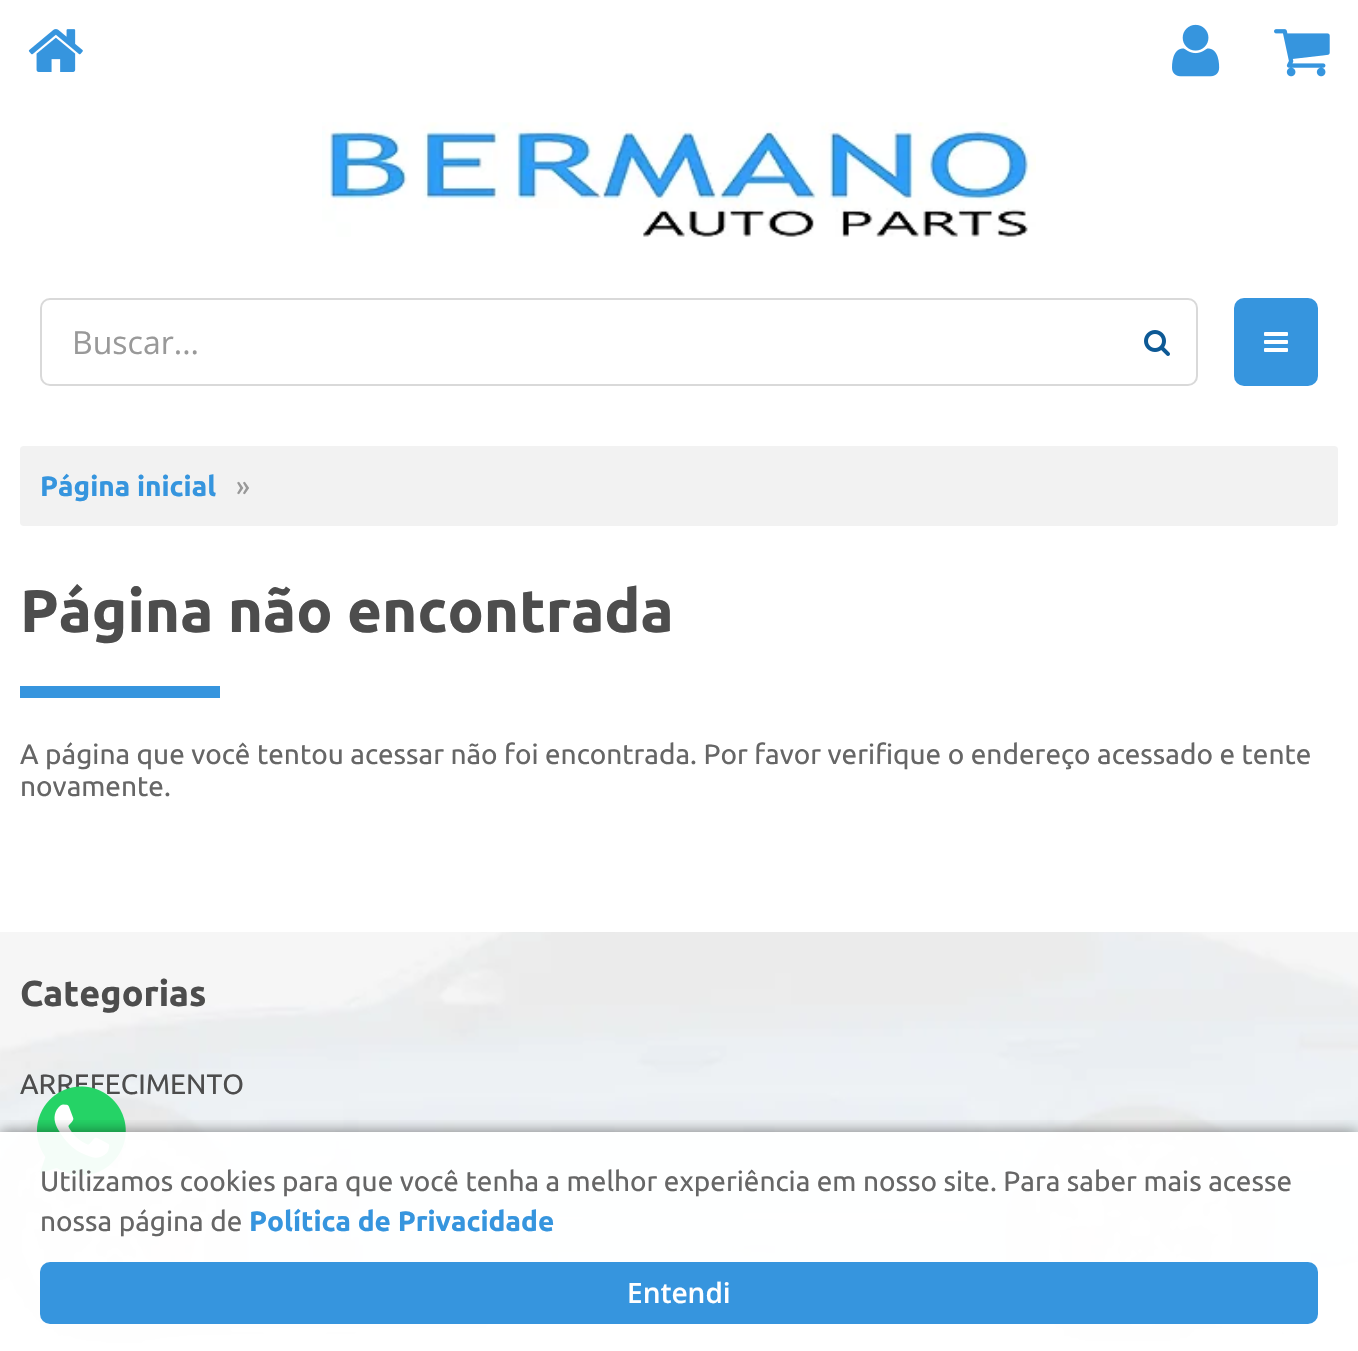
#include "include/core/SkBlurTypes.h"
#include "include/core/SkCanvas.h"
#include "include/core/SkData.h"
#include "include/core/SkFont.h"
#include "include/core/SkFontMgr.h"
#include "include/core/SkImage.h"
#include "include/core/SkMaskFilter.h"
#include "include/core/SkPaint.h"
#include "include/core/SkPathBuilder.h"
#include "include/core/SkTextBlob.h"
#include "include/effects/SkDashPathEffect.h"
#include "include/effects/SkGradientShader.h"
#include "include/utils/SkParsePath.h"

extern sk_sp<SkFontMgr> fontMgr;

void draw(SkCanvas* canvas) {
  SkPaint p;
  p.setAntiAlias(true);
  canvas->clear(SK_ColorWHITE);
  canvas->drawImageRect(SkImages::DeferredFromEncodedData(SkData::MakeFromFileName("images/1.png")), SkRect::MakeLTRB(28, 29, 83, 72), SkSamplingOptions());
  canvas->drawImageRect(SkImages::DeferredFromEncodedData(SkData::MakeFromFileName("images/2.png")), SkRect::MakeLTRB(1172, 24, 1220, 77), SkSamplingOptions());
  canvas->drawImageRect(SkImages::DeferredFromEncodedData(SkData::MakeFromFileName("images/3.png")), SkRect::MakeLTRB(1274, 29, 1330, 77), SkSamplingOptions());
  canvas->drawImageRect(SkImages::DeferredFromEncodedData(SkData::MakeFromFileName("images/4.png")), SkRect::MakeLTRB(322, 122, 1036, 237), SkSamplingOptions());
  p.setStyle(SkPaint::kStroke_Style);
  p.setStrokeWidth(2);
  p.setColor(SkColorSetRGB(217, 217, 217));
  canvas->drawRoundRect(SkRect::MakeLTRB(41, 299, 1197, 385), 9, 9, p);
  canvas->drawImageRect(SkImages::DeferredFromEncodedData(SkData::MakeFromFileName("images/5.png")), SkRect::MakeLTRB(1144, 330, 1170, 356), SkSamplingOptions());
  p.setStyle(SkPaint::kFill_Style);
  p.setColor(SkColorSetRGB(54, 149, 222));
  canvas->drawRoundRect(SkRect::MakeLTRB(1234, 298, 1318, 386), 10, 10, p);
  canvas->drawImageRect(SkImages::DeferredFromEncodedData(SkData::MakeFromFileName("images/6.png")), SkRect::MakeLTRB(1264, 332, 1288, 352), SkSamplingOptions());
  p.setColor(SkColorSetRGB(242, 242, 242));
  canvas->drawRoundRect(SkRect::MakeLTRB(20, 446, 1338, 526), 4, 4, p);
  p.setColor(SkColorSetRGB(54, 149, 222));
  canvas->drawRect(SkRect::MakeLTRB(20, 686, 220, 698), p);
  canvas->drawImageRect(SkImages::DeferredFromEncodedData(SkData::MakeFromFileName("images/7.png")), SkRect::MakeLTRB(0, 932, 1358, 1351), SkSamplingOptions());
  SkFont font1(fontMgr->matchFamilyStyle("Open Sans", SkFontStyle::Normal()), 32);
  font1.setSubpixel(true);
  p.setColor(SkColorSetRGB(153, 153, 153));
  canvas->drawString("Buscar...", 72, 354, font1, p);
  SkFont font2(fontMgr->matchFamilyStyle("Ubuntu", SkFontStyle::Bold()), 28);
  font2.setSubpixel(true);
  p.setColor(SkColorSetRGB(54, 149, 222));
  canvas->drawString("Página inicial", 40, 496, font2, p);
  SkFont font3(fontMgr->matchFamilyStyle("Ubuntu", SkFontStyle::Normal()), 28);
  font3.setSubpixel(true);
  p.setColor(SkColorSetRGB(153, 153, 153));
  canvas->drawString("»", 236, 496, font3, p);
  SkFont font4(fontMgr->matchFamilyStyle("Ubuntu", SkFontStyle::Bold()), 60);
  font4.setSubpixel(true);
  p.setColor(SkColorSetRGB(77, 77, 77));
  canvas->drawString("Página não encontrada", 20, 632, font4, p);
  p.setColor(SkColorSetRGB(102, 102, 102));
  canvas->drawString("A página que você tentou acessar não foi encontrada. Por favor verifique o endereço acessado e tente", 20, 764, font3, p);
  canvas->drawString("novamente.", 20, 796, font3, p);
  SkFont font5(fontMgr->matchFamilyStyle("Ubuntu", SkFontStyle::Bold()), 36);
  font5.setSubpixel(true);
  p.setColor(SkColorSetRGB(77, 77, 77));
  canvas->drawString("Categorias", 20, 1006, font5, p);
  canvas->drawString("ARREFECIMENTO", 20, 1094, font3, p);
  canvas->drawImageRect(SkImages::DeferredFromEncodedData(SkData::MakeFromFileName("images/8.png")), SkRect::MakeLTRB(36, 1086, 126, 1176), SkSamplingOptions());
  canvas->save();
  canvas->clipRect(SkRect::MakeLTRB(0, 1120, 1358, 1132));
  p.setColor(SkColorSetARGB(128, 0, 0, 0));
  p.setMaskFilter(SkMaskFilter::MakeBlur(kNormal_SkBlurStyle, 7));
  canvas->drawRect(SkRect::MakeLTRB(0, 1132, 1358, 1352), p);
  p.setMaskFilter(nullptr);
  canvas->restore();
  p.setColor(SkColorSetARGB(242, 255, 255, 255));
  canvas->drawRect(SkRect::MakeLTRB(0, 1132, 1358, 1351), p);
  p.setColor(SkColorSetRGB(102, 102, 102));
  canvas->drawString("Utilizamos cookies para que você tenha a melhor experiência em nosso site. Para saber mais acesse", 40, 1191, font3, p);
  canvas->drawString("nossa página de", 40, 1231, font3, p);
  p.setColor(SkColorSetRGB(54, 149, 222));
  canvas->drawString("Política de Privacidade", 249, 1231, font2, p);
  canvas->drawRoundRect(SkRect::MakeLTRB(40, 1262, 1318, 1324), 10, 10, p);
  SkFont font6(fontMgr->matchFamilyStyle("Open Sans", SkFontStyle(600, SkFontStyle::kNormal_Width, SkFontStyle::kUpright_Slant)), 28);
  font6.setSubpixel(true);
  p.setColor(SK_ColorWHITE);
  canvas->drawString("Entendi", 627, 1303, font6, p);
}
